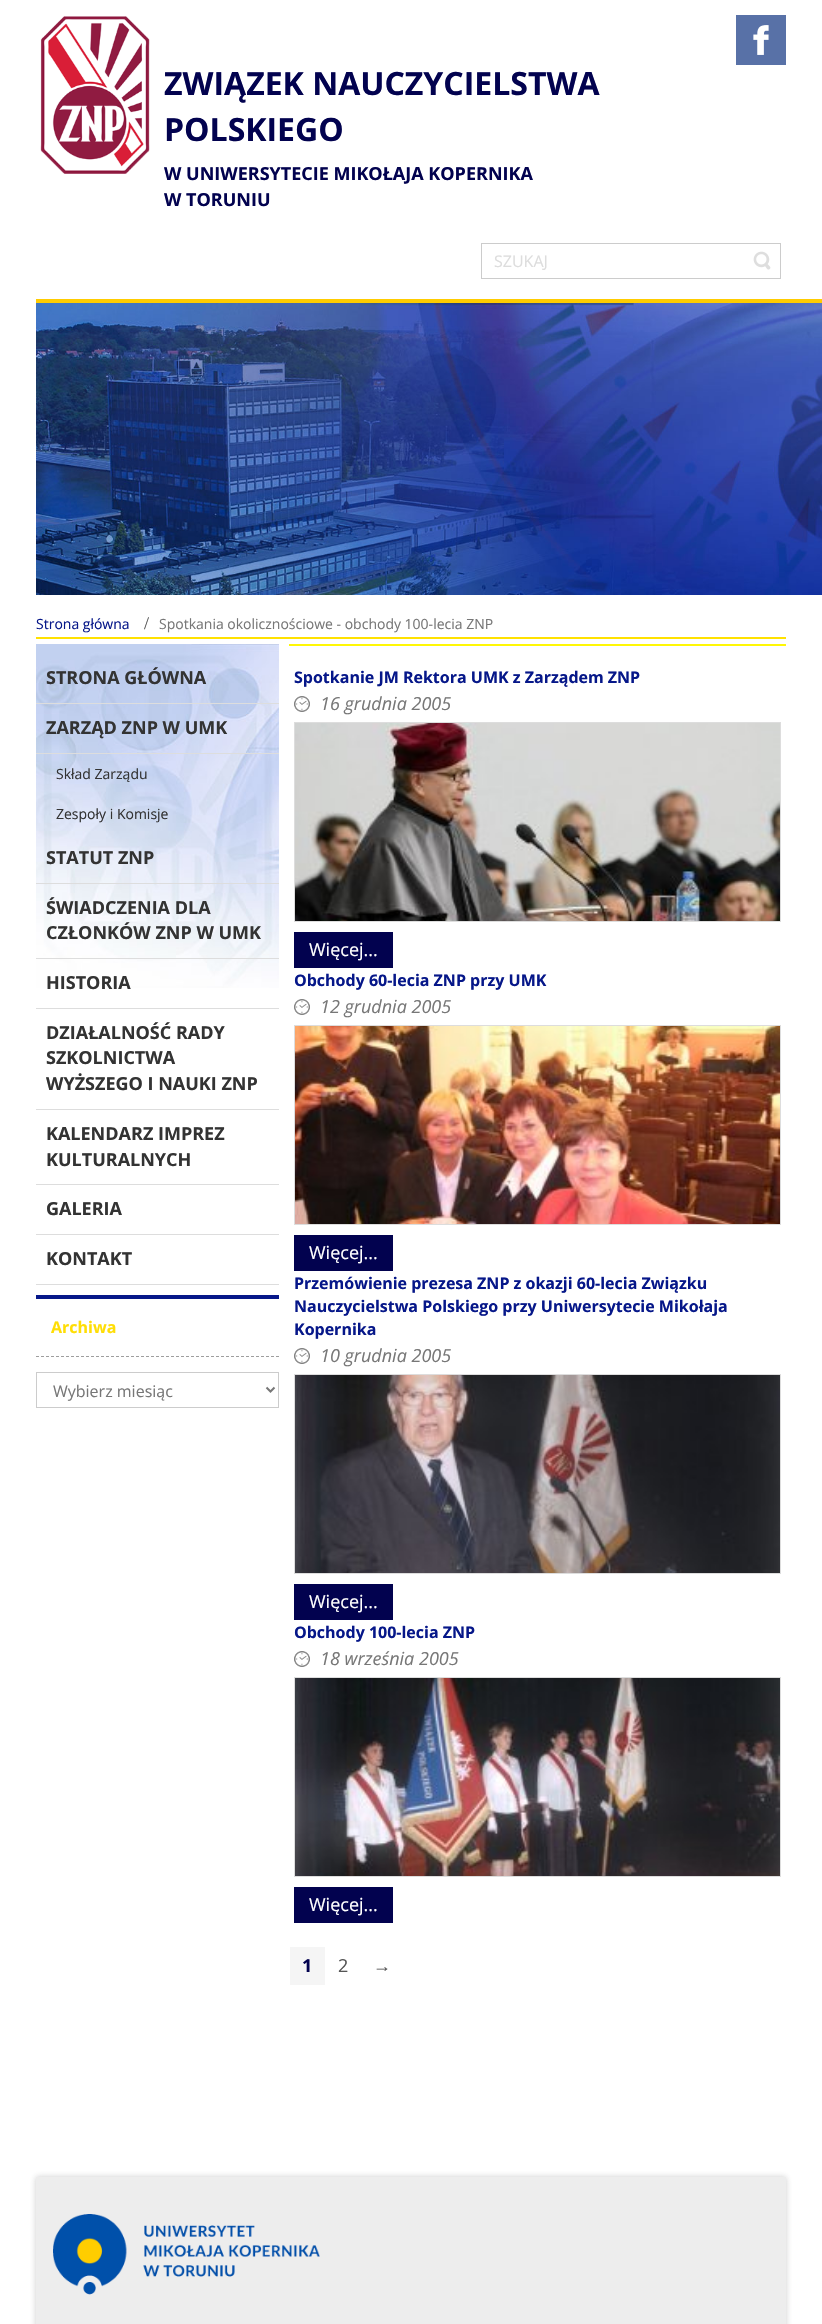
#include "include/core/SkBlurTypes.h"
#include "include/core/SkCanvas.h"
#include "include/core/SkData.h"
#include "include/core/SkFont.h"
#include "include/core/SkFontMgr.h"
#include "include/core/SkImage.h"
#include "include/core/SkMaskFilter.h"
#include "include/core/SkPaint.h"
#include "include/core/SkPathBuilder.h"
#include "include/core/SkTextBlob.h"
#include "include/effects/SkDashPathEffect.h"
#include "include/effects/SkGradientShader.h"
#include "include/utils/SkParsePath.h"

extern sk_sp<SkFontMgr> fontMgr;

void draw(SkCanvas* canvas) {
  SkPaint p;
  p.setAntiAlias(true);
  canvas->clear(SK_ColorWHITE);
  p.setColor(SkColorSetRGB(88, 113, 167));
  canvas->drawRect(SkRect::MakeLTRB(736, 15, 786, 65), p);
  canvas->drawImageRect(SkImages::DeferredFromEncodedData(SkData::MakeFromFileName("images/1.png")), SkRect::MakeLTRB(753, 25, 769, 55), SkSamplingOptions());
  canvas->drawImageRect(SkImages::DeferredFromEncodedData(SkData::MakeFromFileName("images/2.png")), SkRect::MakeLTRB(40, 16, 150, 174), SkSamplingOptions());
  p.setStyle(SkPaint::kStroke_Style);
  p.setStrokeWidth(1);
  p.setColor(SkColorSetRGB(204, 204, 204));
  canvas->drawRect(SkRect::MakeLTRB(481.5f, 243.5f, 780.5f, 278.5f), p);
  canvas->drawImageRect(SkImages::DeferredFromEncodedData(SkData::MakeFromFileName("images/3.png")), SkRect::MakeLTRB(753, 251, 771, 270), SkSamplingOptions());
  p.setStyle(SkPaint::kFill_Style);
  p.setColor(SkColorSetRGB(255, 204, 0));
  canvas->drawRect(SkRect::MakeLTRB(36, 299, 822, 303), p);
  canvas->drawImageRect(SkImages::DeferredFromEncodedData(SkData::MakeFromFileName("images/4.png")), SkRect::MakeLTRB(36, 303, 822, 595), SkSamplingOptions());
  p.setColor(SkColorSetRGB(255, 225, 0));
  canvas->drawRect(SkRect::MakeLTRB(36, 637, 786, 639), p);
  canvas->drawImageRect(SkImages::DeferredFromEncodedData(SkData::MakeFromFileName("images/5.png")), SkRect::MakeLTRB(36, 644, 279, 988), SkSamplingOptions());
  p.setColor(SkColorSetRGB(221, 221, 221));
  canvas->drawRect(SkRect::MakeLTRB(36, 703, 279, 704), p);
  canvas->drawRect(SkRect::MakeLTRB(36, 753, 279, 754), p);
  canvas->drawRect(SkRect::MakeLTRB(36, 883, 279, 884), p);
  canvas->drawRect(SkRect::MakeLTRB(36, 958, 279, 959), p);
  canvas->drawRect(SkRect::MakeLTRB(36, 1008, 279, 1009), p);
  canvas->drawRect(SkRect::MakeLTRB(36, 1109, 279, 1110), p);
  canvas->drawRect(SkRect::MakeLTRB(36, 1184, 279, 1185), p);
  canvas->drawRect(SkRect::MakeLTRB(36, 1234, 279, 1235), p);
  canvas->drawRect(SkRect::MakeLTRB(36, 1284, 279, 1285), p);
  p.setColor(SkColorSetRGB(6, 23, 137));
  canvas->drawRect(SkRect::MakeLTRB(36, 1295, 279, 1299), p);
  p.setStyle(SkPaint::kStroke_Style);
  p.setColor(SkColorSetRGB(158, 158, 158));
  p.setPathEffect(SkDashPathEffect::Make({{3, 2}}, 0));
  canvas->drawPath(SkPathBuilder().moveTo(36, 1356.5f).lineTo(279, 1356.5f).detach(), p);
  p.setPathEffect(nullptr);
  p.setColor(SkColorSetRGB(204, 204, 204));
  canvas->drawRect(SkRect::MakeLTRB(36.5f, 1372.5f, 278.5f, 1407.5f), p);
  p.setStrokeWidth(2);
  p.setColor(SkColorSetRGB(119, 119, 119));
  canvas->drawPath(SkPathBuilder().moveTo(266.5f, 1387.5f).lineTo(270.5f, 1391.5f).lineTo(274.5f, 1387.5f).detach(), p);
  p.setStyle(SkPaint::kFill_Style);
  p.setColor(SkColorSetRGB(255, 247, 5));
  canvas->drawRect(SkRect::MakeLTRB(289, 644, 786, 646), p);
  canvas->drawImageRect(SkImages::DeferredFromEncodedData(SkData::MakeFromFileName("images/6.png")), SkRect::MakeLTRB(294, 696, 310, 712), SkSamplingOptions());
  canvas->drawImageRect(SkImages::DeferredFromEncodedData(SkData::MakeFromFileName("images/7.png")), SkRect::MakeLTRB(295, 723, 780, 921), SkSamplingOptions());
  p.setStyle(SkPaint::kStroke_Style);
  p.setStrokeWidth(1);
  p.setColor(SkColorSetRGB(221, 221, 221));
  canvas->drawRect(SkRect::MakeLTRB(294.5f, 722.5f, 780.5f, 921.5f), p);
  p.setStyle(SkPaint::kFill_Style);
  p.setColor(SkColorSetRGB(2, 2, 79));
  canvas->drawRect(SkRect::MakeLTRB(294, 932, 393, 968), p);
  canvas->drawImageRect(SkImages::DeferredFromEncodedData(SkData::MakeFromFileName("images/6.png")), SkRect::MakeLTRB(294, 999, 310, 1015), SkSamplingOptions());
  canvas->drawImageRect(SkImages::DeferredFromEncodedData(SkData::MakeFromFileName("images/8.png")), SkRect::MakeLTRB(295, 1026, 780, 1224), SkSamplingOptions());
  p.setStyle(SkPaint::kStroke_Style);
  p.setColor(SkColorSetRGB(221, 221, 221));
  canvas->drawRect(SkRect::MakeLTRB(294.5f, 1025.5f, 780.5f, 1224.5f), p);
  p.setStyle(SkPaint::kFill_Style);
  p.setColor(SkColorSetRGB(2, 2, 79));
  canvas->drawRect(SkRect::MakeLTRB(294, 1235, 393, 1271), p);
  canvas->drawImageRect(SkImages::DeferredFromEncodedData(SkData::MakeFromFileName("images/6.png")), SkRect::MakeLTRB(294, 1348, 310, 1364), SkSamplingOptions());
  canvas->drawImageRect(SkImages::DeferredFromEncodedData(SkData::MakeFromFileName("images/9.png")), SkRect::MakeLTRB(295, 1375, 780, 1573), SkSamplingOptions());
  p.setStyle(SkPaint::kStroke_Style);
  p.setColor(SkColorSetRGB(221, 221, 221));
  canvas->drawRect(SkRect::MakeLTRB(294.5f, 1374.5f, 780.5f, 1573.5f), p);
  p.setStyle(SkPaint::kFill_Style);
  p.setColor(SkColorSetRGB(2, 2, 79));
  canvas->drawRect(SkRect::MakeLTRB(294, 1584, 393, 1620), p);
  canvas->drawImageRect(SkImages::DeferredFromEncodedData(SkData::MakeFromFileName("images/6.png")), SkRect::MakeLTRB(294, 1651, 310, 1667), SkSamplingOptions());
  canvas->drawImageRect(SkImages::DeferredFromEncodedData(SkData::MakeFromFileName("images/10.png")), SkRect::MakeLTRB(295, 1678, 780, 1876), SkSamplingOptions());
  p.setStyle(SkPaint::kStroke_Style);
  p.setColor(SkColorSetRGB(221, 221, 221));
  canvas->drawRect(SkRect::MakeLTRB(294.5f, 1677.5f, 780.5f, 1876.5f), p);
  p.setStyle(SkPaint::kFill_Style);
  p.setColor(SkColorSetRGB(2, 2, 79));
  canvas->drawRect(SkRect::MakeLTRB(294, 1887, 393, 1923), p);
  p.setColor(SkColorSetRGB(245, 245, 245));
  canvas->drawRect(SkRect::MakeLTRB(290, 1947, 325, 1985), p);
  p.setColor(SkColorSetARGB(64, 51, 51, 51));
  p.setMaskFilter(SkMaskFilter::MakeBlur(kNormal_SkBlurStyle, 3));
  canvas->drawRect(SkRect::MakeLTRB(36, 2177, 786, 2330), p);
  p.setMaskFilter(nullptr);
  p.setColor(SkColorSetRGB(237, 237, 237));
  canvas->drawRect(SkRect::MakeLTRB(36, 2177, 786, 2324), p);
  canvas->drawImageRect(SkImages::DeferredFromEncodedData(SkData::MakeFromFileName("images/11.png")), SkRect::MakeLTRB(53, 2214, 320, 2295), SkSamplingOptions());
  SkFont font1(fontMgr->matchFamilyStyle("Open Sans", SkFontStyle::Bold()), 32);
  font1.setSubpixel(true);
  p.setColor(SkColorSetRGB(2, 2, 79));
  canvas->drawString("ZWIĄZEK NAUCZYCIELSTWA", 164, 95, font1, p);
  canvas->drawString("POLSKIEGO", 164, 141, font1, p);
  SkFont font2(fontMgr->matchFamilyStyle("Open Sans", SkFontStyle::Bold()), 18);
  font2.setSubpixel(true);
  canvas->drawString("W UNIWERSYTECIE MIKOŁAJA KOPERNIKA", 164, 180, font2, p);
  canvas->drawString("W TORUNIU", 164, 206, font2, p);
  SkFont font3(fontMgr->matchFamilyStyle("Open Sans", SkFontStyle::Normal()), 16);
  font3.setSubpixel(true);
  p.setColor(SkColorSetRGB(221, 221, 221));
  canvas->drawString("SZUKAJ", 494, 267, font3, p);
  SkFont font4(fontMgr->matchFamilyStyle("Open Sans", SkFontStyle::Normal()), 14);
  font4.setSubpixel(true);
  p.setColor(SkColorSetRGB(6, 23, 137));
  canvas->drawString("Strona główna", 36, 629, font4, p);
  SkFont font5(fontMgr->matchFamilyStyle("Liberation Serif", SkFontStyle::Normal()), 18);
  font5.setSubpixel(true);
  p.setColor(SkColorSetRGB(85, 85, 85));
  canvas->drawString("/", 144, 629, font5, p);
  p.setColor(SkColorSetRGB(119, 119, 119));
  canvas->drawString("Spotkania okolicznościowe - obchody 100-lecia ZNP", 159, 629, font4, p);
  p.setColor(SkColorSetRGB(51, 51, 51));
  canvas->drawString("STRONA GŁÓWNA", 46, 684, font2, p);
  canvas->drawString("ZARZĄD ZNP W UMK", 46, 734, font2, p);
  canvas->drawString("Skład Zarządu", 56, 779, font4, p);
  canvas->drawString("Zespoły i Komisje", 56, 819, font4, p);
  canvas->drawString("STATUT ZNP", 46, 864, font2, p);
  canvas->drawString("ŚWIADCZENIA DLA", 46, 914, font2, p);
  canvas->drawString("CZŁONKÓW ZNP W UMK", 46, 939, font2, p);
  canvas->drawString("HISTORIA", 46, 989, font2, p);
  canvas->drawString("DZIAŁALNOŚĆ RADY", 46, 1039, font2, p);
  canvas->drawString("SZKOLNICTWA", 46, 1064, font2, p);
  canvas->drawString("WYŻSZEGO I NAUKI ZNP", 46, 1090, font2, p);
  canvas->drawString("KALENDARZ IMPREZ", 46, 1140, font2, p);
  canvas->drawString("KULTURALNYCH", 46, 1166, font2, p);
  canvas->drawString("GALERIA", 46, 1215, font2, p);
  canvas->drawString("KONTAKT", 46, 1265, font2, p);
  SkFont font6(fontMgr->matchFamilyStyle("Open Sans", SkFontStyle::Bold()), 16);
  font6.setSubpixel(true);
  p.setColor(SkColorSetRGB(255, 222, 5));
  canvas->drawString("Archiwa", 51, 1333, font6, p);
  p.setColor(SkColorSetRGB(119, 119, 119));
  canvas->drawString("Wybierz miesiąc", 53, 1397, font3, p);
  p.setColor(SkColorSetRGB(6, 23, 137));
  canvas->drawString("Spotkanie JM Rektora UMK z Zarządem ZNP", 294, 683, font6, p);
  SkFont font7(fontMgr->matchFamilyStyle("Open Sans", SkFontStyle::Italic()), 18);
  font7.setSubpixel(true);
  p.setColor(SkColorSetRGB(119, 119, 119));
  canvas->drawString("16 grudnia 2005", 320, 710, font7, p);
  SkFont font8(fontMgr->matchFamilyStyle("Open Sans", SkFontStyle::Normal()), 18);
  font8.setSubpixel(true);
  p.setColor(SK_ColorWHITE);
  canvas->drawString("Więcej...", 309, 956, font8, p);
  p.setColor(SkColorSetRGB(6, 23, 137));
  canvas->drawString("Obchody 60-lecia ZNP przy UMK", 294, 986, font6, p);
  p.setColor(SkColorSetRGB(119, 119, 119));
  canvas->drawString("12 grudnia 2005", 320, 1013, font7, p);
  p.setColor(SK_ColorWHITE);
  canvas->drawString("Więcej...", 309, 1259, font8, p);
  p.setColor(SkColorSetRGB(6, 23, 137));
  canvas->drawString("Przemówienie prezesa ZNP z okazji 60-lecia Związku", 294, 1289, font6, p);
  canvas->drawString("Nauczycielstwa Polskiego przy Uniwersytecie Mikołaja", 294, 1312, font6, p);
  canvas->drawString("Kopernika", 294, 1335, font6, p);
  p.setColor(SkColorSetRGB(119, 119, 119));
  canvas->drawString("10 grudnia 2005", 320, 1362, font7, p);
  p.setColor(SK_ColorWHITE);
  canvas->drawString("Więcej...", 309, 1608, font8, p);
  p.setColor(SkColorSetRGB(6, 23, 137));
  canvas->drawString("Obchody 100-lecia ZNP", 294, 1638, font6, p);
  p.setColor(SkColorSetRGB(119, 119, 119));
  canvas->drawString("18 września 2005", 320, 1665, font7, p);
  p.setColor(SK_ColorWHITE);
  canvas->drawString("Więcej...", 309, 1911, font8, p);
  p.setColor(SkColorSetRGB(2, 2, 79));
  canvas->drawString("1", 302, 1972, font2, p);
  p.setColor(SkColorSetRGB(85, 85, 85));
  canvas->drawString("2", 338, 1972, font8, p);
  canvas->drawString("→", 373, 1972, font5, p);
}
